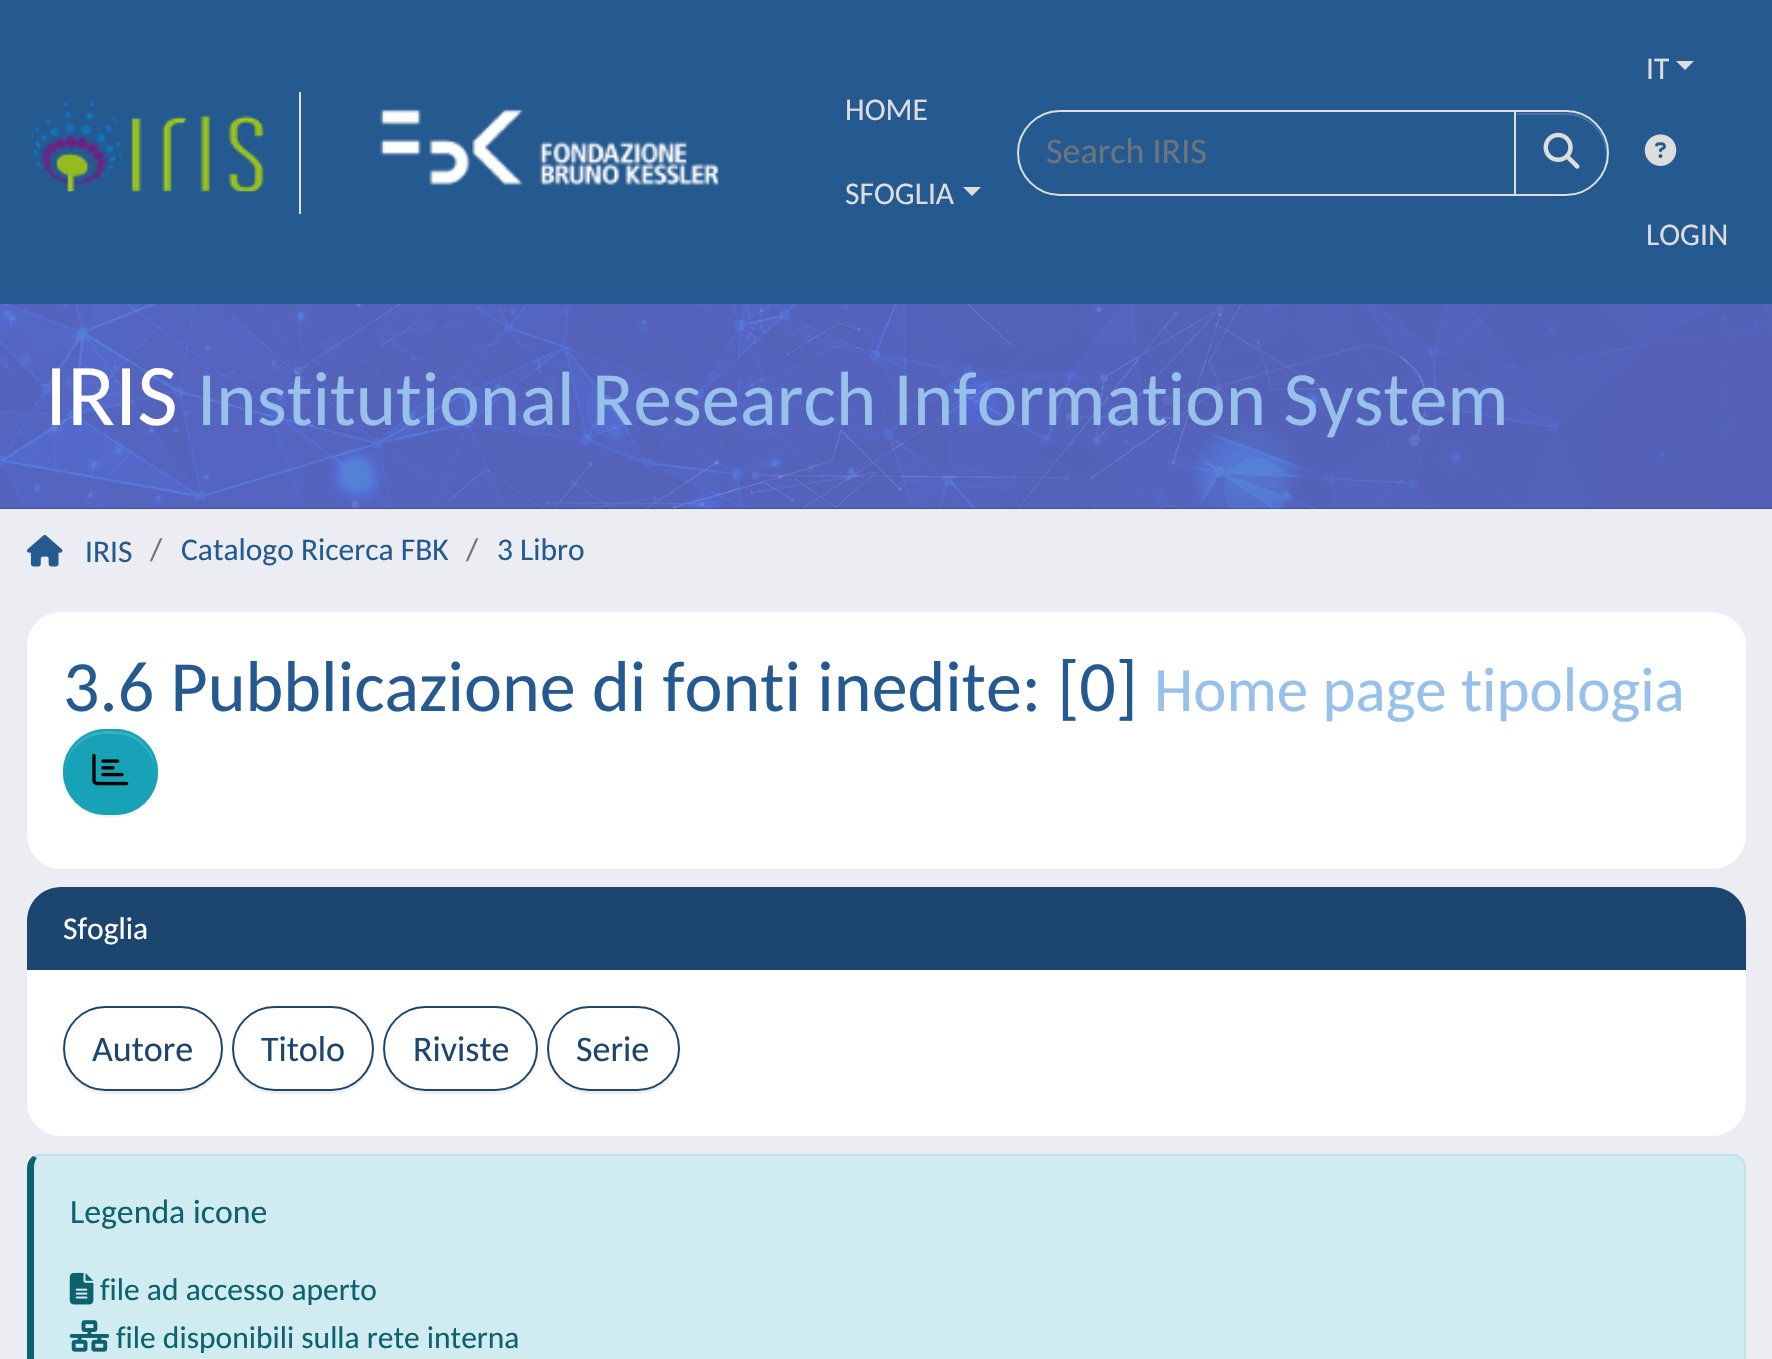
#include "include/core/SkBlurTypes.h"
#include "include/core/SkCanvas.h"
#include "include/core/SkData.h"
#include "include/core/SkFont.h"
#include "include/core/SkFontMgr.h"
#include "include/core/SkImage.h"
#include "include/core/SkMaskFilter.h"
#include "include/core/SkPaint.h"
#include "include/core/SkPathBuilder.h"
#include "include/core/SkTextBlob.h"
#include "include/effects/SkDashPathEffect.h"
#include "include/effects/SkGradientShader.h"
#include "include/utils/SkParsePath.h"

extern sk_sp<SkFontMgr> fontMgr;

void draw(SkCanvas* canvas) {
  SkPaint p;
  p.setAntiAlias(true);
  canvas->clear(SkColorSetRGB(236, 237, 242));
  p.setColor(SkColorSetRGB(37, 90, 144));
  canvas->drawRect(SkRect::MakeLTRB(0, 0, 1772, 304), p);
  p.setColor(SkColorSetRGB(221, 221, 221));
  canvas->drawRect(SkRect::MakeLTRB(299, 92, 301, 214), p);
  canvas->drawImageRect(SkImages::DeferredFromEncodedData(SkData::MakeFromFileName("images/1.png")), SkRect::MakeLTRB(27, 101, 264, 192), SkSamplingOptions());
  canvas->drawImageRect(SkImages::DeferredFromEncodedData(SkData::MakeFromFileName("images/2.png")), SkRect::MakeLTRB(379, 109, 719, 186), SkSamplingOptions());
  canvas->drawPath(SkPathBuilder().moveTo(963, 187).lineTo(981, 187).lineTo(972, 196).close().detach(), p);
  p.setStyle(SkPaint::kStroke_Style);
  p.setStrokeWidth(2);
  canvas->drawPath(SkPathBuilder().moveTo(1060, 111).lineTo(1516, 111).lineTo(1516, 195).lineTo(1060, 195).cubicTo(1037, 195, 1018, 176, 1018, 153).cubicTo(1018, 130, 1037, 111, 1060, 111).close().detach(), p);
  p.setStyle(SkPaint::kFill_Style);
  p.setColor(SkColorSetARGB(18, 0, 0, 0));
  p.setMaskFilter(SkMaskFilter::MakeBlur(kNormal_SkBlurStyle, 1));
  canvas->drawRoundRect(SkRect::MakeLTRB(1514, 113, 1609, 198), 42.5f, 42.5f, p);
  p.setMaskFilter(nullptr);
  p.setColor(SkColorSetRGB(37, 90, 144));
  canvas->drawPath(SkPathBuilder().moveTo(1514, 110).lineTo(1566, 110).cubicTo(1589.5f, 110, 1609, 129.5f, 1609, 153).cubicTo(1609, 176.5f, 1589.5f, 196, 1566, 196).lineTo(1514, 196).close().detach(), p);
  p.setColor(SkColorSetRGB(70, 115, 161));
  canvas->drawPath(SkPathBuilder().moveTo(1517, 113).lineTo(1517, 115).lineTo(1566, 115).cubicTo(1588, 115, 1606, 133, 1606, 155).cubicTo(1606, 161, 1605, 168, 1602, 173).cubicTo(1617, 147, 1597, 113, 1566, 113).close().detach(), p);
  p.setStyle(SkPaint::kStroke_Style);
  p.setColor(SkColorSetRGB(221, 221, 221));
  canvas->drawPath(SkPathBuilder().moveTo(1515, 111).lineTo(1566, 111).cubicTo(1589, 111, 1608, 130, 1608, 153).cubicTo(1608, 176, 1589, 195, 1566, 195).lineTo(1515, 195).close().detach(), p);
  canvas->drawImageRect(SkImages::DeferredFromEncodedData(SkData::MakeFromFileName("images/3.png")), SkRect::MakeLTRB(1543, 132, 1580, 169), SkSamplingOptions());
  p.setStyle(SkPaint::kFill_Style);
  canvas->drawPath(SkPathBuilder().moveTo(1676, 61).lineTo(1694, 61).lineTo(1685, 70).close().detach(), p);
  canvas->drawImageRect(SkImages::DeferredFromEncodedData(SkData::MakeFromFileName("images/4.png")), SkRect::MakeLTRB(1644, 134, 1677, 166), SkSamplingOptions());
  p.setColor(SkColorSetRGB(28, 69, 111));
  canvas->drawRect(SkRect::MakeLTRB(0, 304, 1772, 509), p);
  canvas->drawImageRect(SkImages::DeferredFromEncodedData(SkData::MakeFromFileName("images/5.png")), SkRect::MakeLTRB(0, 304, 1772, 509), SkSamplingOptions());
  canvas->drawImageRect(SkImages::DeferredFromEncodedData(SkData::MakeFromFileName("images/6.png")), SkRect::MakeLTRB(27, 534, 63, 567), SkSamplingOptions());
  p.setColor(SK_ColorWHITE);
  canvas->drawRoundRect(SkRect::MakeLTRB(27, 612, 1746, 869), 34, 34, p);
  p.setColor(SkColorSetARGB(18, 0, 0, 0));
  p.setMaskFilter(SkMaskFilter::MakeBlur(kNormal_SkBlurStyle, 1));
  canvas->drawRoundRect(SkRect::MakeLTRB(63, 731, 158, 817), 43, 43, p);
  p.setMaskFilter(nullptr);
  p.setColor(SkColorSetRGB(23, 162, 184));
  canvas->drawRoundRect(SkRect::MakeLTRB(63, 729, 158, 815), 43, 43, p);
  p.setColor(SkColorSetRGB(58, 176, 195));
  canvas->drawPath(SkPathBuilder().moveTo(106, 734).lineTo(115, 734).cubicTo(137, 734, 154, 751, 155, 773).cubicTo(156, 753, 142, 736, 123, 732).lineTo(108, 731).cubicTo(102, 731, 96, 732, 90, 734).cubicTo(74, 741, 65, 756, 65, 773).cubicTo(66, 751, 83, 734, 106, 734).close().detach(), p);
  p.setStyle(SkPaint::kStroke_Style);
  p.setColor(SkColorSetRGB(23, 162, 184));
  canvas->drawRoundRect(SkRect::MakeLTRB(64, 730, 157, 814), 42, 42, p);
  canvas->drawImageRect(SkImages::DeferredFromEncodedData(SkData::MakeFromFileName("images/7.png")), SkRect::MakeLTRB(92, 753, 129, 786), SkSamplingOptions());
  p.setStyle(SkPaint::kFill_Style);
  p.setColor(SK_ColorWHITE);
  canvas->drawRoundRect(SkRect::MakeLTRB(27, 887, 1746, 1136), 34, 34, p);
  p.setColor(SkColorSetRGB(28, 69, 111));
  canvas->drawPath(SkPathBuilder().moveTo(61, 887).lineTo(1712, 887).cubicTo(1731, 887, 1746, 902, 1746, 921).lineTo(1746, 970).lineTo(27, 970).lineTo(27, 921).cubicTo(27, 902, 42, 887, 61, 887).close().detach(), p);
  canvas->save();
  canvas->clipPath(SkPathBuilder(SkPathFillType::kEvenOdd).moveTo(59, 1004).lineTo(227, 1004).lineTo(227, 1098).lineTo(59, 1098).close().moveTo(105.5f, 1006).lineTo(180.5f, 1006).cubicTo(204, 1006, 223, 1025, 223, 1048.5f).cubicTo(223, 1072, 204, 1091, 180.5f, 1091).lineTo(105.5f, 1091).cubicTo(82, 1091, 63, 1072, 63, 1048.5f).cubicTo(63, 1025, 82, 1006, 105.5f, 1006).close().detach(), true);
  p.setColor(SkColorSetARGB(18, 0, 0, 0));
  p.setMaskFilter(SkMaskFilter::MakeBlur(kNormal_SkBlurStyle, 1));
  canvas->drawRoundRect(SkRect::MakeLTRB(63, 1008, 223, 1094), 43, 43, p);
  p.setMaskFilter(nullptr);
  canvas->restore();
  p.setStyle(SkPaint::kStroke_Style);
  p.setColor(SkColorSetRGB(28, 69, 111));
  canvas->drawRoundRect(SkRect::MakeLTRB(64, 1007, 222, 1090), 41.5f, 41.5f, p);
  canvas->save();
  canvas->clipPath(SkPathBuilder(SkPathFillType::kEvenOdd).moveTo(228, 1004).lineTo(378, 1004).lineTo(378, 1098).lineTo(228, 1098).close().moveTo(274.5f, 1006).lineTo(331.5f, 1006).cubicTo(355, 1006, 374, 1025, 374, 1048.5f).cubicTo(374, 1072, 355, 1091, 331.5f, 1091).lineTo(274.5f, 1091).cubicTo(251, 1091, 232, 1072, 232, 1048.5f).cubicTo(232, 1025, 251, 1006, 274.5f, 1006).close().detach(), true);
  p.setStyle(SkPaint::kFill_Style);
  p.setColor(SkColorSetARGB(18, 0, 0, 0));
  p.setMaskFilter(SkMaskFilter::MakeBlur(kNormal_SkBlurStyle, 1));
  canvas->drawRoundRect(SkRect::MakeLTRB(232, 1008, 374, 1094), 43, 43, p);
  p.setMaskFilter(nullptr);
  canvas->restore();
  p.setStyle(SkPaint::kStroke_Style);
  p.setColor(SkColorSetRGB(28, 69, 111));
  canvas->drawRoundRect(SkRect::MakeLTRB(233, 1007, 373, 1090), 41.5f, 41.5f, p);
  canvas->save();
  canvas->clipPath(SkPathBuilder(SkPathFillType::kEvenOdd).moveTo(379, 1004).lineTo(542, 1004).lineTo(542, 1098).lineTo(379, 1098).close().moveTo(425.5f, 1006).lineTo(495.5f, 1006).cubicTo(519, 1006, 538, 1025, 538, 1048.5f).cubicTo(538, 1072, 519, 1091, 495.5f, 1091).lineTo(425.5f, 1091).cubicTo(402, 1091, 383, 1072, 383, 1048.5f).cubicTo(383, 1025, 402, 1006, 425.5f, 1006).close().detach(), true);
  p.setStyle(SkPaint::kFill_Style);
  p.setColor(SkColorSetARGB(18, 0, 0, 0));
  p.setMaskFilter(SkMaskFilter::MakeBlur(kNormal_SkBlurStyle, 1));
  canvas->drawRoundRect(SkRect::MakeLTRB(383, 1008, 538, 1094), 43, 43, p);
  p.setMaskFilter(nullptr);
  canvas->restore();
  p.setStyle(SkPaint::kStroke_Style);
  p.setColor(SkColorSetRGB(28, 69, 111));
  canvas->drawRoundRect(SkRect::MakeLTRB(384, 1007, 537, 1090), 41.5f, 41.5f, p);
  canvas->save();
  canvas->clipPath(SkPathBuilder(SkPathFillType::kEvenOdd).moveTo(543, 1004).lineTo(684, 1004).lineTo(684, 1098).lineTo(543, 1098).close().moveTo(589.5f, 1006).lineTo(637.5f, 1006).cubicTo(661, 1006, 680, 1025, 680, 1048.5f).cubicTo(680, 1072, 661, 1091, 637.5f, 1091).lineTo(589.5f, 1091).cubicTo(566, 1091, 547, 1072, 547, 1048.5f).cubicTo(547, 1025, 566, 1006, 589.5f, 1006).close().detach(), true);
  p.setStyle(SkPaint::kFill_Style);
  p.setColor(SkColorSetARGB(18, 0, 0, 0));
  p.setMaskFilter(SkMaskFilter::MakeBlur(kNormal_SkBlurStyle, 1));
  canvas->drawRoundRect(SkRect::MakeLTRB(547, 1008, 680, 1094), 43, 43, p);
  p.setMaskFilter(nullptr);
  canvas->restore();
  p.setStyle(SkPaint::kStroke_Style);
  p.setColor(SkColorSetRGB(28, 69, 111));
  canvas->drawRoundRect(SkRect::MakeLTRB(548, 1007, 679, 1090), 41.5f, 41.5f, p);
  p.setStyle(SkPaint::kFill_Style);
  p.setColor(SkColorSetRGB(209, 236, 241));
  canvas->drawPath(SkPathBuilder().moveTo(40, 1156).lineTo(1732, 1156).cubicTo(1739, 1156, 1744, 1162, 1744, 1168).lineTo(1744, 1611).cubicTo(1744, 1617, 1739, 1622, 1732, 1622).lineTo(40, 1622).cubicTo(37, 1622, 34, 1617, 34, 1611).lineTo(34, 1168).cubicTo(34, 1162, 37, 1156, 40, 1156).close().detach(), p);
  p.setColor(SkColorSetRGB(185, 227, 234));
  canvas->drawPath(SkPathBuilder().moveTo(40, 1156).cubicTo(39, 1156, 38, 1157, 37, 1158).lineTo(33, 1156).lineTo(38, 1154).lineTo(1735, 1154).cubicTo(1738, 1155, 1740, 1156, 1742, 1158).lineTo(1741, 1160).cubicTo(1738, 1157, 1735, 1156, 1732, 1156).close().detach(), p);
  canvas->drawPath(SkPathBuilder().moveTo(1746, 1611).lineTo(1746, 1168).cubicTo(1746, 1164, 1745, 1161, 1742, 1158).lineTo(1741, 1160).cubicTo(1743, 1162, 1744, 1165, 1744, 1168).lineTo(1744, 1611).cubicTo(1744, 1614, 1743, 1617, 1740, 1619).lineTo(1742, 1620).cubicTo(1744, 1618, 1746, 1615, 1746, 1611).close().detach(), p);
  p.setColor(SkColorSetRGB(14, 97, 110));
  canvas->drawPath(SkPathBuilder().moveTo(27, 1168).lineTo(27, 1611).cubicTo(27, 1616, 30, 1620, 34, 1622).lineTo(38, 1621).cubicTo(36, 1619, 34, 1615, 34, 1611).lineTo(34, 1168).cubicTo(34, 1164, 35, 1160, 37, 1158).lineTo(33, 1156).cubicTo(29, 1159, 27, 1163, 27, 1168).close().detach(), p);
  canvas->drawImageRect(SkImages::DeferredFromEncodedData(SkData::MakeFromFileName("images/8.png")), SkRect::MakeLTRB(69, 1272, 94, 1305), SkSamplingOptions());
  canvas->drawImageRect(SkImages::DeferredFromEncodedData(SkData::MakeFromFileName("images/9.png")), SkRect::MakeLTRB(69, 1320, 110, 1352), SkSamplingOptions());
  SkFont font1(fontMgr->matchFamilyStyle("Carlito", SkFontStyle::Normal()), 31.5f);
  font1.setSubpixel(true);
  p.setColor(SkColorSetRGB(221, 221, 221));
  canvas->drawString("HOME", 845, 120, font1, p);
  canvas->drawString("SFOGLIA", 845, 204, font1, p);
  SkFont font2(fontMgr->matchFamilyStyle("Carlito", SkFontStyle::Normal()), 36);
  font2.setSubpixel(true);
  p.setColor(SkColorSetRGB(108, 117, 125));
  canvas->drawString("Search IRIS", 1046, 163, font2, p);
  p.setColor(SkColorSetRGB(221, 221, 221));
  canvas->drawString("IT", 1646, 79, font1, p);
  canvas->drawString("LOGIN", 1646, 245, font1, p);
  SkFont font3(fontMgr->matchFamilyStyle("Carlito", SkFontStyle::Normal()), 88);
  font3.setSubpixel(true);
  p.setColor(SK_ColorWHITE);
  canvas->drawString("IRIS", 45, 425, font3, p);
  SkFont font4(fontMgr->matchFamilyStyle("Carlito", SkFontStyle::Normal()), 76.75f);
  font4.setSubpixel(true);
  p.setColor(SkColorSetRGB(151, 193, 234));
  canvas->drawString("Institutional Research Information System", 197, 425, font4, p);
  p.setColor(SkColorSetRGB(37, 90, 144));
  canvas->drawString("IRIS", 85, 562, font1, p);
  p.setColor(SkColorSetRGB(108, 117, 125));
  canvas->drawString("/", 150, 560, font1, p);
  p.setColor(SkColorSetRGB(37, 90, 144));
  canvas->drawString("Catalogo Ricerca FBK", 181, 560, font1, p);
  p.setColor(SkColorSetRGB(108, 117, 125));
  canvas->drawString("/", 466, 560, font1, p);
  p.setColor(SkColorSetRGB(37, 90, 144));
  canvas->drawString("3 Libro", 497, 560, font1, p);
  SkFont font5(fontMgr->matchFamilyStyle("Carlito", SkFontStyle::Normal()), 72);
  font5.setSubpixel(true);
  canvas->drawString("3.6 Pubblicazione di fonti inedite: [0]", 63, 711, font5, p);
  SkFont font6(fontMgr->matchFamilyStyle("Carlito", SkFontStyle::Normal()), 63);
  font6.setSubpixel(true);
  p.setColor(SkColorSetRGB(151, 193, 234));
  canvas->drawString("Home page tipologia", 1154, 711, font6, p);
  p.setColor(SK_ColorWHITE);
  canvas->drawString("Sfoglia", 63, 939, font1, p);
  p.setColor(SkColorSetRGB(28, 69, 111));
  canvas->drawString("Autore", 92, 1061, font2, p);
  canvas->drawString("Titolo", 261, 1061, font2, p);
  canvas->drawString("Riviste", 413, 1061, font2, p);
  canvas->drawString("Serie", 576, 1061, font2, p);
  SkFont font7(fontMgr->matchFamilyStyle("Carlito", SkFontStyle::Normal()), 33.75f);
  font7.setSubpixel(true);
  p.setColor(SkColorSetRGB(14, 97, 110));
  canvas->drawString("Legenda icone", 70, 1223, font7, p);
  canvas->drawString("file ad accesso aperto", 100, 1300, font1, p);
  canvas->drawString("file disponibili sulla rete interna", 116, 1348, font1, p);
}
